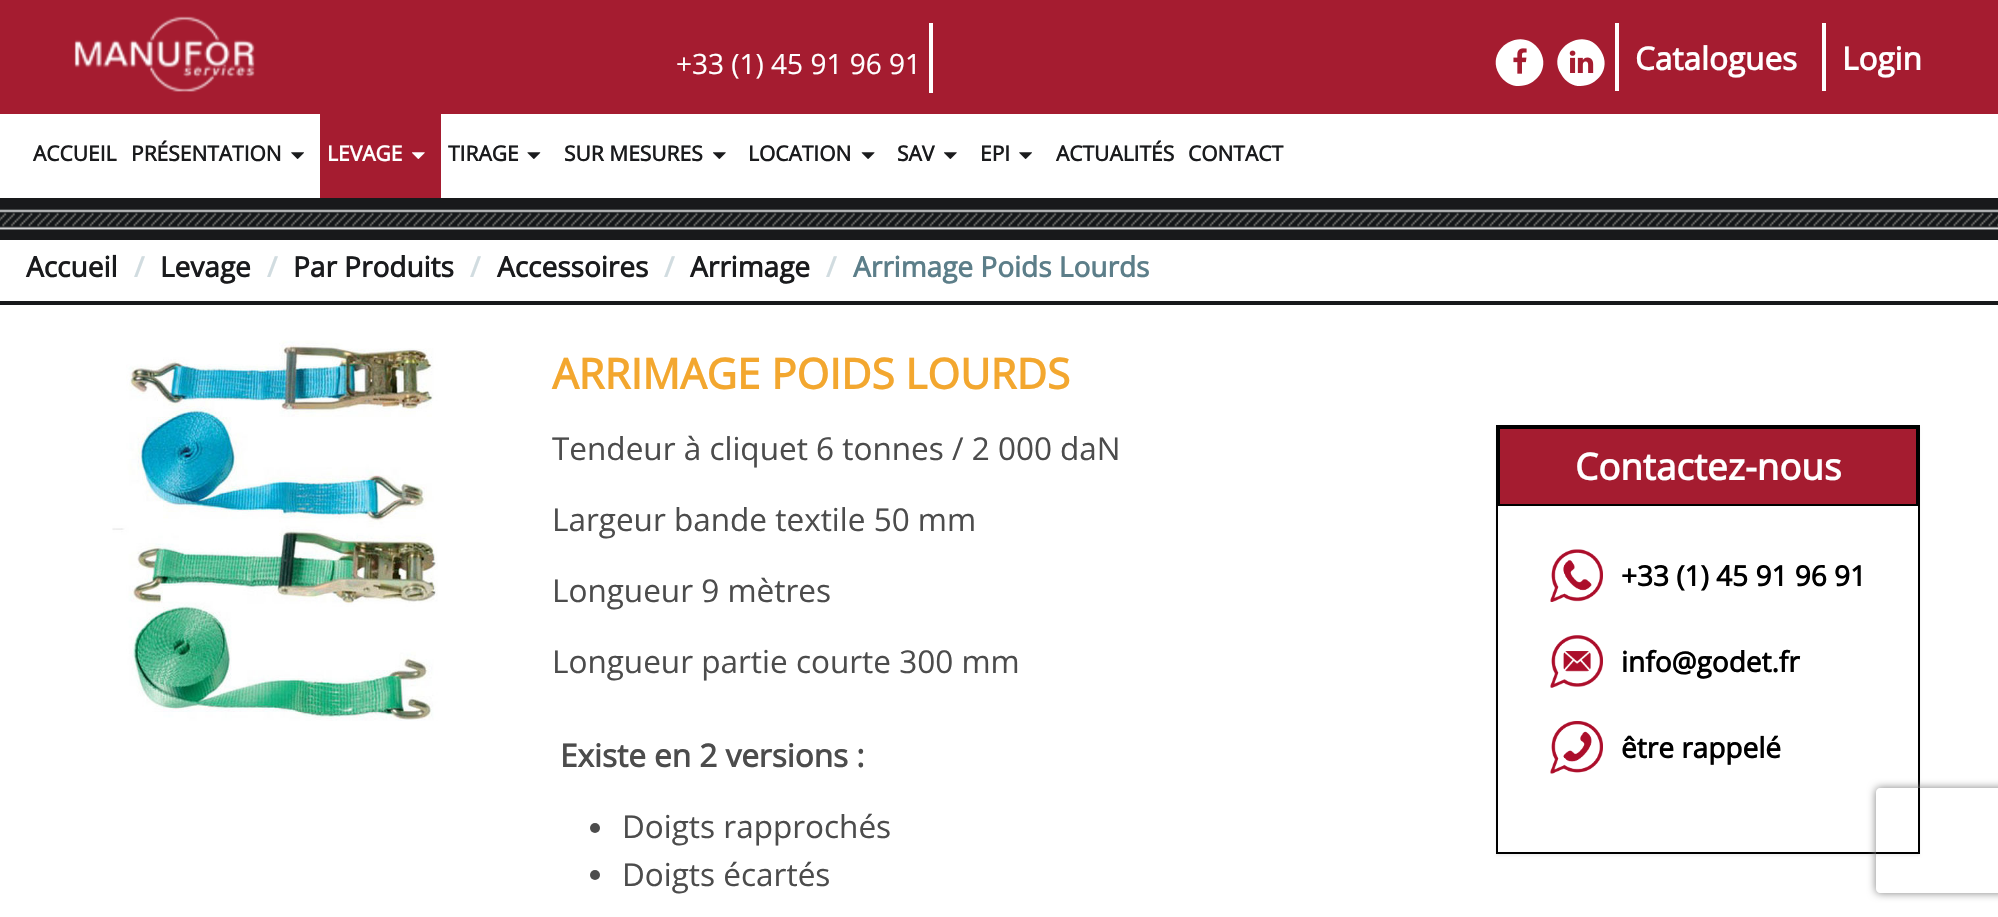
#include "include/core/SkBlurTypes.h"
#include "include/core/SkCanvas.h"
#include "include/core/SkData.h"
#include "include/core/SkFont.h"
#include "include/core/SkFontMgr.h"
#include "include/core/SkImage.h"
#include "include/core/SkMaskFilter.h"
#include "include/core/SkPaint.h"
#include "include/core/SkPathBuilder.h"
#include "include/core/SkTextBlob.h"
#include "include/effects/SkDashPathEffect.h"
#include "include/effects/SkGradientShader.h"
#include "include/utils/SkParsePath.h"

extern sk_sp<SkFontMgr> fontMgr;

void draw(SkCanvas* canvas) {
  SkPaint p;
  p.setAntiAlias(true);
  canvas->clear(SK_ColorWHITE);
  p.setColor(SkColorSetRGB(165, 28, 48));
  canvas->drawRect(SkRect::MakeLTRB(0, 0, 1998, 114), p);
  canvas->drawImageRect(SkImages::DeferredFromEncodedData(SkData::MakeFromFileName("images/1.png")), SkRect::MakeLTRB(74, 16, 255, 92), SkSamplingOptions());
  p.setColor(SK_ColorWHITE);
  canvas->drawRect(SkRect::MakeLTRB(929, 23, 933, 93), p);
  canvas->drawPath(SkPathBuilder().moveTo(1540, 51).cubicTo(1555, 78, 1515, 101, 1499, 74).cubicTo(1484, 48, 1524, 24, 1540, 51).close().detach(), p);
  canvas->drawImageRect(SkImages::DeferredFromEncodedData(SkData::MakeFromFileName("images/2.png")), SkRect::MakeLTRB(1513, 48, 1527, 74), SkSamplingOptions());
  canvas->drawPath(SkPathBuilder().moveTo(1601, 51).cubicTo(1617, 78, 1576, 101, 1561, 74).cubicTo(1545, 48, 1586, 24, 1601, 51).close().detach(), p);
  canvas->drawImageRect(SkImages::DeferredFromEncodedData(SkData::MakeFromFileName("images/3.png")), SkRect::MakeLTRB(1569, 50, 1594, 73), SkSamplingOptions());
  canvas->drawRect(SkRect::MakeLTRB(1615, 23, 1619, 91), p);
  canvas->drawRect(SkRect::MakeLTRB(1822, 23, 1826, 91), p);
  canvas->drawImageRect(SkImages::DeferredFromEncodedData(SkData::MakeFromFileName("images/4.png")), SkRect::MakeLTRB(291, 152, 304, 159), SkSamplingOptions());
  p.setColor(SkColorSetRGB(165, 28, 48));
  canvas->drawRect(SkRect::MakeLTRB(320, 114, 441, 198), p);
  canvas->drawImageRect(SkImages::DeferredFromEncodedData(SkData::MakeFromFileName("images/5.png")), SkRect::MakeLTRB(412, 152, 425, 159), SkSamplingOptions());
  canvas->drawImageRect(SkImages::DeferredFromEncodedData(SkData::MakeFromFileName("images/6.png")), SkRect::MakeLTRB(527, 152, 541, 159), SkSamplingOptions());
  canvas->drawImageRect(SkImages::DeferredFromEncodedData(SkData::MakeFromFileName("images/7.png")), SkRect::MakeLTRB(713, 152, 726, 159), SkSamplingOptions());
  canvas->drawImageRect(SkImages::DeferredFromEncodedData(SkData::MakeFromFileName("images/8.png")), SkRect::MakeLTRB(861, 152, 875, 159), SkSamplingOptions());
  canvas->drawImageRect(SkImages::DeferredFromEncodedData(SkData::MakeFromFileName("images/7.png")), SkRect::MakeLTRB(944, 152, 957, 159), SkSamplingOptions());
  canvas->drawImageRect(SkImages::DeferredFromEncodedData(SkData::MakeFromFileName("images/4.png")), SkRect::MakeLTRB(1019, 152, 1032, 159), SkSamplingOptions());
  p.setColor(SkColorSetRGB(24, 25, 27));
  canvas->drawRect(SkRect::MakeLTRB(0, 198, 1998, 240), p);
  canvas->drawImageRect(SkImages::DeferredFromEncodedData(SkData::MakeFromFileName("images/9.png")), SkRect::MakeLTRB(0, 209, 1998, 230), SkSamplingOptions());
  canvas->drawRect(SkRect::MakeLTRB(0, 301, 1998, 305), p);
  canvas->drawImageRect(SkImages::DeferredFromEncodedData(SkData::MakeFromFileName("images/10.png")), SkRect::MakeLTRB(112, 340, 438, 721), SkSamplingOptions());
  p.setColor(SkColorSetARGB(13, 0, 0, 0));
  p.setMaskFilter(SkMaskFilter::MakeBlur(kNormal_SkBlurStyle, 1));
  canvas->drawRect(SkRect::MakeLTRB(1496, 427, 1920, 856), p);
  p.setMaskFilter(nullptr);
  p.setColor(SK_ColorWHITE);
  canvas->drawRect(SkRect::MakeLTRB(1498, 506, 1918, 852), p);
  p.setStyle(SkPaint::kStroke_Style);
  p.setStrokeWidth(2);
  p.setColor(SK_ColorBLACK);
  canvas->drawRect(SkRect::MakeLTRB(1497, 426, 1919, 853), p);
  p.setStyle(SkPaint::kFill_Style);
  p.setColor(SkColorSetRGB(165, 28, 48));
  canvas->drawRect(SkRect::MakeLTRB(1499, 428, 1917, 505), p);
  p.setStyle(SkPaint::kStroke_Style);
  p.setColor(SK_ColorBLACK);
  canvas->drawRect(SkRect::MakeLTRB(1499, 428, 1917, 505), p);
  canvas->drawImageRect(SkImages::DeferredFromEncodedData(SkData::MakeFromFileName("images/11.png")), SkRect::MakeLTRB(1550, 549, 1603, 602), SkSamplingOptions());
  canvas->drawImageRect(SkImages::DeferredFromEncodedData(SkData::MakeFromFileName("images/12.png")), SkRect::MakeLTRB(1550, 635, 1603, 688), SkSamplingOptions());
  canvas->drawImageRect(SkImages::DeferredFromEncodedData(SkData::MakeFromFileName("images/13.png")), SkRect::MakeLTRB(1550, 721, 1603, 774), SkSamplingOptions());
  p.setStyle(SkPaint::kFill_Style);
  p.setColor(SkColorSetRGB(76, 76, 76));
  canvas->drawCircle(595, 828, 5, p);
  canvas->drawCircle(595, 875, 5, p);
  canvas->save();
  canvas->clipPath(SkPathBuilder(SkPathFillType::kEvenOdd).moveTo(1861, 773).lineTo(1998, 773).lineTo(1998, 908).lineTo(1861, 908).close().moveTo(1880, 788).lineTo(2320, 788).cubicTo(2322, 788, 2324, 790, 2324, 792).lineTo(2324, 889).cubicTo(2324, 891, 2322, 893, 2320, 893).lineTo(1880, 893).cubicTo(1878, 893, 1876, 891, 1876, 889).lineTo(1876, 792).cubicTo(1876, 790, 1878, 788, 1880, 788).close().detach(), true);
  p.setColor(SkColorSetRGB(128, 128, 128));
  p.setMaskFilter(SkMaskFilter::MakeBlur(kNormal_SkBlurStyle, 4.5f));
  canvas->drawRoundRect(SkRect::MakeLTRB(1876, 788, 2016, 893), 4, 4, p);
  p.setMaskFilter(nullptr);
  canvas->restore();
  SkFont font1(fontMgr->matchFamilyStyle("Open Sans", SkFontStyle::Normal()), 28);
  font1.setSubpixel(true);
  p.setColor(SK_ColorWHITE);
  canvas->drawString("+33 (1) 45 91 96 91", 676, 74, font1, p);
  SkFont font2(fontMgr->matchFamilyStyle("Open Sans", SkFontStyle::Bold()), 31.5f);
  font2.setSubpixel(true);
  canvas->drawString("Catalogues", 1635, 70, font2, p);
  canvas->drawString("Login", 1842, 70, font2, p);
  SkFont font3(fontMgr->matchFamilyStyle("Open Sans", SkFontStyle::Bold()), 21);
  font3.setSubpixel(true);
  p.setColor(SkColorSetRGB(26, 27, 29));
  canvas->drawString("ACCUEIL", 33, 161, font3, p);
  canvas->drawString("PRÉSENTATION", 131, 161, font3, p);
  p.setColor(SK_ColorWHITE);
  canvas->drawString("LEVAGE", 327, 161, font3, p);
  p.setColor(SkColorSetRGB(26, 27, 29));
  canvas->drawString("TIRAGE", 448, 161, font3, p);
  canvas->drawString("SUR MESURES", 564, 161, font3, p);
  canvas->drawString("LOCATION", 748, 161, font3, p);
  canvas->drawString("SAV", 897, 161, font3, p);
  canvas->drawString("EPI", 980, 161, font3, p);
  canvas->drawString("ACTUALITÉS", 1056, 161, font3, p);
  canvas->drawString("CONTACT", 1188, 161, font3, p);
  SkFont font4(fontMgr->matchFamilyStyle("Open Sans", SkFontStyle::Bold()), 28);
  font4.setSubpixel(true);
  canvas->drawString("Accueil", 26, 277, font4, p);
  p.setColor(SkColorSetRGB(209, 220, 224));
  canvas->drawString("/", 134, 277, font4, p);
  p.setColor(SkColorSetRGB(26, 27, 29));
  canvas->drawString("Levage", 160, 277, font4, p);
  p.setColor(SkColorSetRGB(209, 220, 224));
  canvas->drawString("/", 267, 277, font4, p);
  p.setColor(SkColorSetRGB(26, 27, 29));
  canvas->drawString("Par Produits", 293, 277, font4, p);
  p.setColor(SkColorSetRGB(209, 220, 224));
  canvas->drawString("/", 470, 277, font4, p);
  p.setColor(SkColorSetRGB(26, 27, 29));
  canvas->drawString("Accessoires", 497, 277, font4, p);
  p.setColor(SkColorSetRGB(209, 220, 224));
  canvas->drawString("/", 664, 277, font4, p);
  p.setColor(SkColorSetRGB(26, 27, 29));
  canvas->drawString("Arrimage", 690, 277, font4, p);
  p.setColor(SkColorSetRGB(209, 220, 224));
  canvas->drawString("/", 826, 277, font4, p);
  p.setColor(SkColorSetRGB(92, 126, 137));
  canvas->drawString("Arrimage Poids Lourds", 853, 277, font4, p);
  SkFont font5(fontMgr->matchFamilyStyle("Open Sans", SkFontStyle::Bold()), 42);
  font5.setSubpixel(true);
  p.setColor(SkColorSetRGB(243, 167, 47));
  canvas->drawString("ARRIMAGE POIDS LOURDS", 552, 389, font5, p);
  SkFont font6(fontMgr->matchFamilyStyle("Open Sans", SkFontStyle::Normal()), 31.5f);
  font6.setSubpixel(true);
  p.setColor(SkColorSetRGB(76, 76, 76));
  canvas->drawString("Tendeur à cliquet 6 tonnes / 2 000 daN", 552, 460, font6, p);
  SkFont font7(fontMgr->matchFamilyStyle("Open Sans", SkFontStyle::Bold()), 36.75f);
  font7.setSubpixel(true);
  p.setColor(SK_ColorWHITE);
  canvas->drawString("Contactez-nous", 1575, 480, font7, p);
  p.setColor(SK_ColorBLACK);
  canvas->drawString("+33 (1) 45 91 96 91", 1621, 586, font4, p);
  canvas->drawString("info@godet.fr", 1621, 672, font4, p);
  canvas->drawString("être rappelé", 1621, 758, font4, p);
  p.setColor(SkColorSetRGB(76, 76, 76));
  canvas->drawString("Largeur bande textile 50 mm", 552, 531, font6, p);
  canvas->drawString("Longueur 9 mètres", 552, 602, font6, p);
  canvas->drawString("Longueur partie courte 300 mm", 552, 673, font6, p);
  canvas->drawString("Existe en 2 versions :", 560, 767, font2, p);
  canvas->drawString("Doigts rapprochés", 622, 838, font6, p);
  canvas->drawString("Doigts écartés", 622, 886, font6, p);
}
